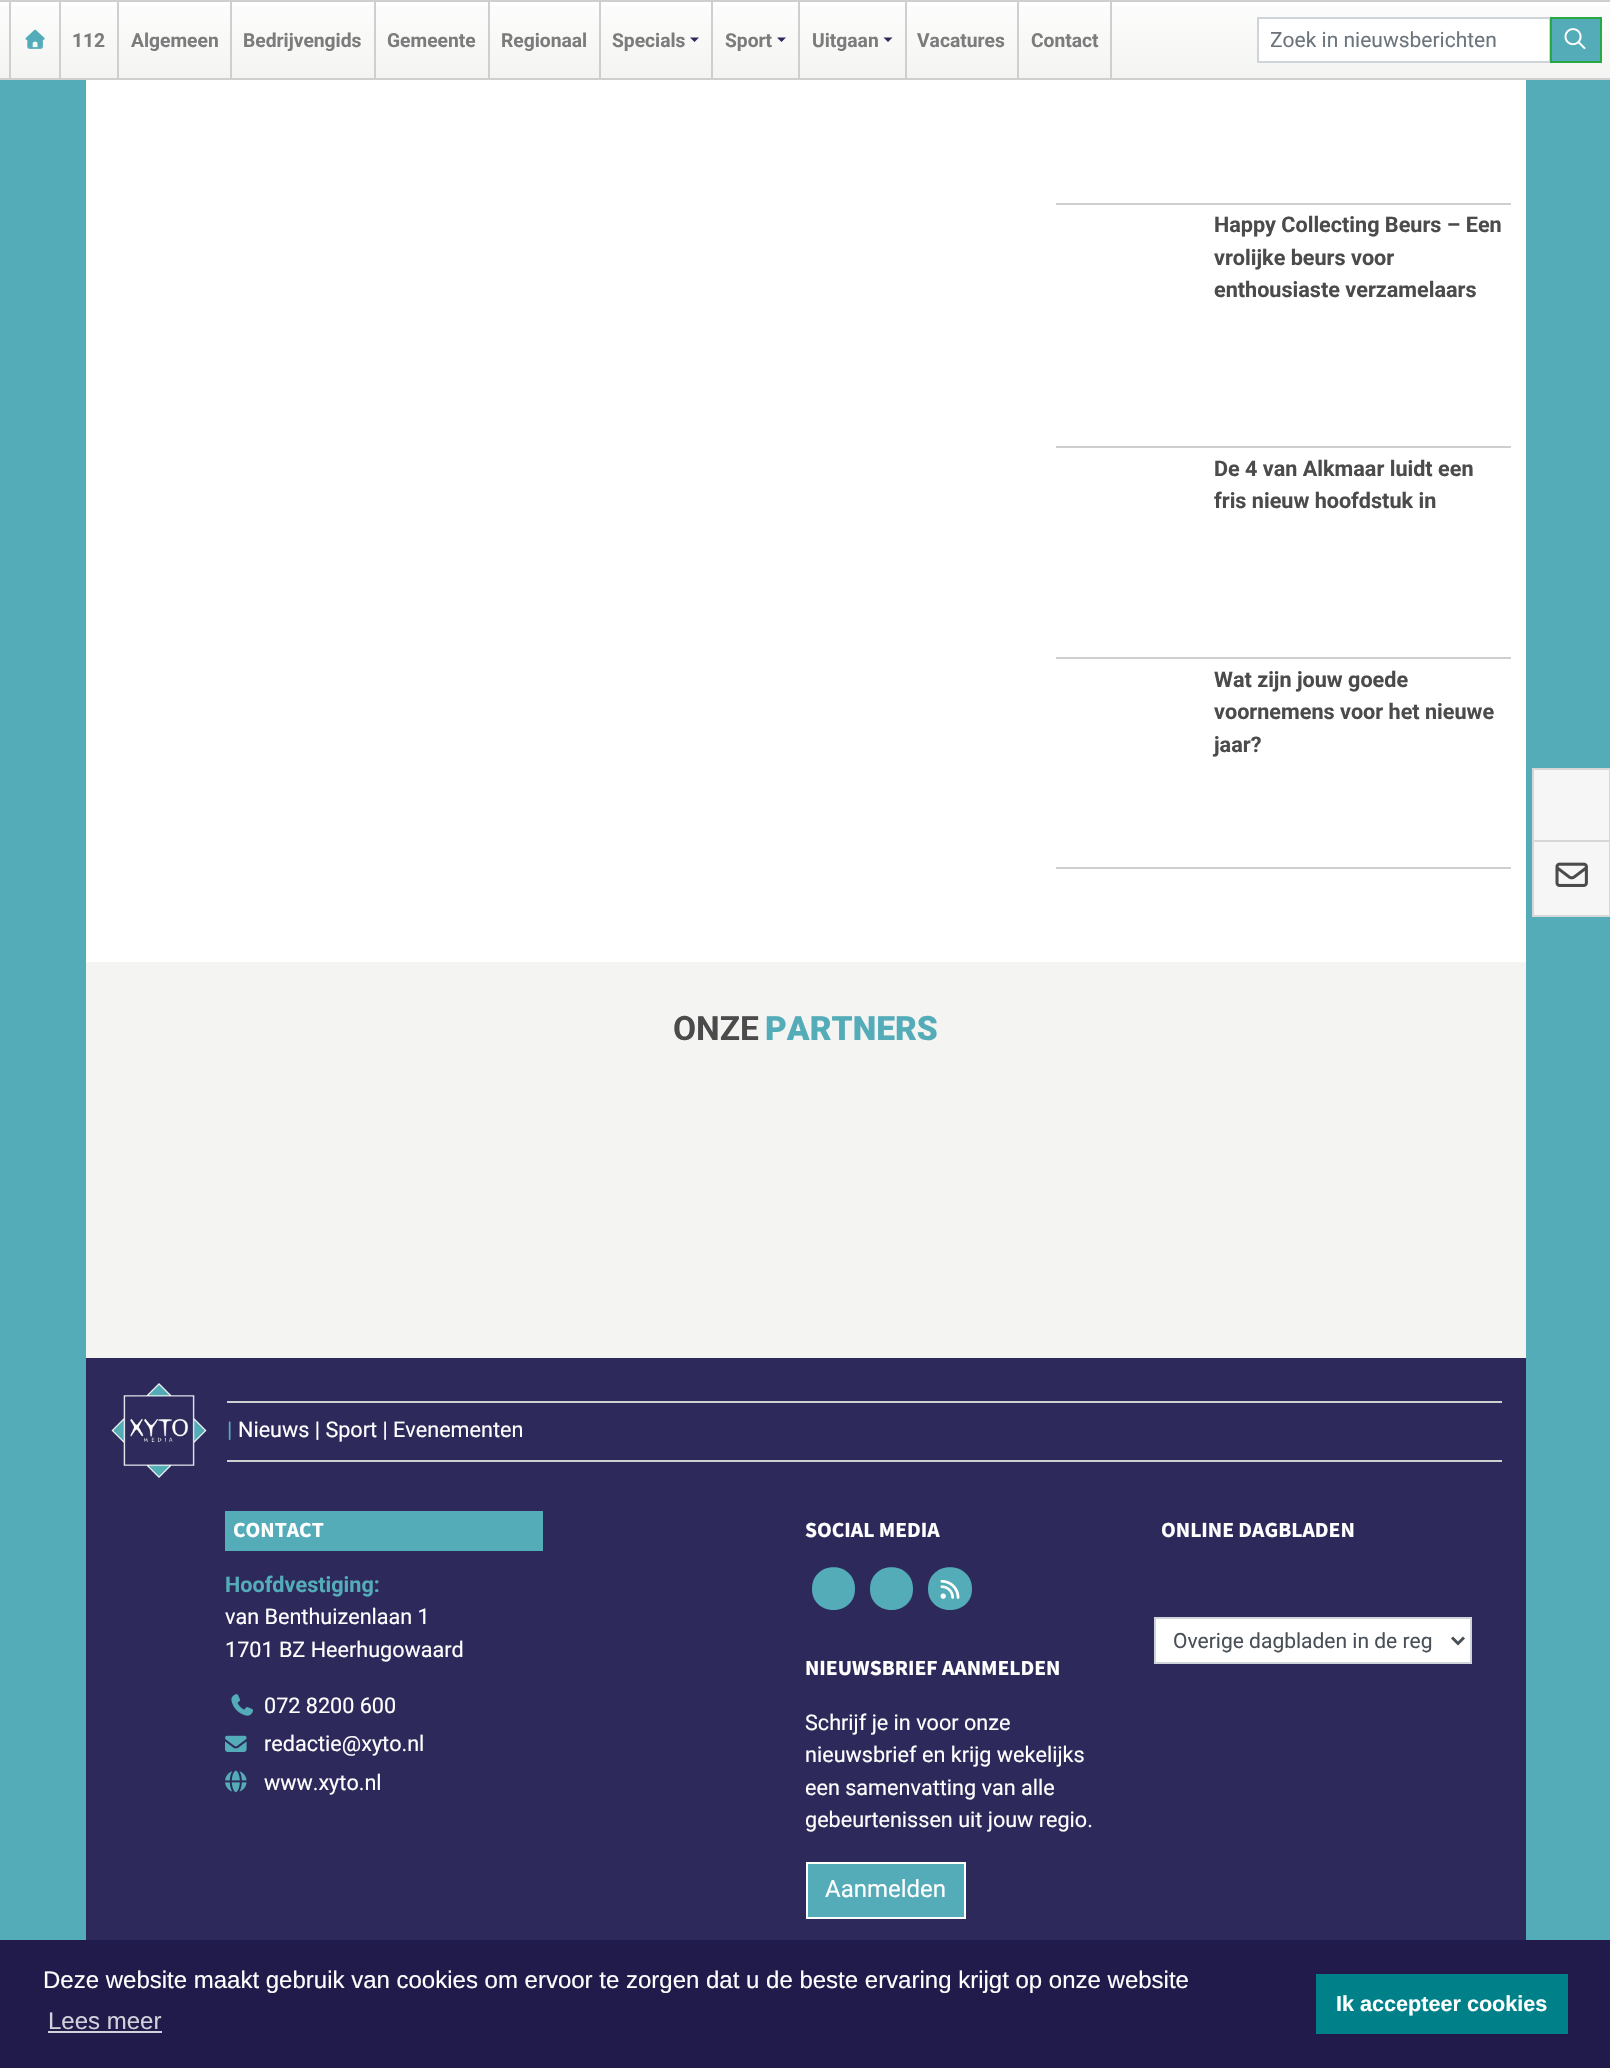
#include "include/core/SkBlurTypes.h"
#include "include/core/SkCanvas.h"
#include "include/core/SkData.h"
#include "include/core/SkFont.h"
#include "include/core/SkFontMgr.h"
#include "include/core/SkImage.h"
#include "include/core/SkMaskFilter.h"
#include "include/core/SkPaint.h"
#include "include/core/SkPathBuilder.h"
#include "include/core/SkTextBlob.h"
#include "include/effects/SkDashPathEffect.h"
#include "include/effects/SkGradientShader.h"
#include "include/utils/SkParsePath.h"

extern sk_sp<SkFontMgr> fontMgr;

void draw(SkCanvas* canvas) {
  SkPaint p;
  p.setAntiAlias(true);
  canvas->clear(SK_ColorWHITE);
  {
    const SkColor colors[] = {SkColorSetRGB(253, 253, 253), SkColorSetRGB(244, 244, 242)};
    const float stops[] = {0, 1};
    const SkPoint ends[] = {{806, 1.5f}, {806, 78}};
    p.setShader(SkGradientShader::MakeLinear(ends, colors, stops, 2, SkTileMode::kClamp));
    p.setAlpha(255);
  }
  canvas->drawRect(SkRect::MakeLTRB(0, 5, 1610, 78), p);
  p.setShader(nullptr);
  p.setColor(SkColorSetRGB(207, 207, 207));
  canvas->drawRect(SkRect::MakeLTRB(0, 0, 1610, 2), p);
  canvas->drawRect(SkRect::MakeLTRB(0, 78, 1610, 80), p);
  canvas->drawRect(SkRect::MakeLTRB(59, 2, 61, 78), p);
  canvas->drawRect(SkRect::MakeLTRB(9, 2, 11, 78), p);
  canvas->drawImageRect(SkImages::DeferredFromEncodedData(SkData::MakeFromFileName("images/1.png")), SkRect::MakeLTRB(25, 29, 45, 49), SkSamplingOptions());
  canvas->drawRect(SkRect::MakeLTRB(117, 2, 119, 78), p);
  canvas->drawRect(SkRect::MakeLTRB(230, 2, 232, 78), p);
  canvas->drawRect(SkRect::MakeLTRB(374, 2, 376, 78), p);
  canvas->drawRect(SkRect::MakeLTRB(488, 2, 490, 78), p);
  canvas->drawRect(SkRect::MakeLTRB(599, 2, 601, 78), p);
  canvas->drawRect(SkRect::MakeLTRB(711, 2, 713, 78), p);
  p.setColor(SkColorSetRGB(45, 42, 91));
  canvas->drawPath(SkPathBuilder().moveTo(690, 37.5f).lineTo(699, 37.5f).lineTo(694.5f, 42).close().detach(), p);
  p.setColor(SkColorSetRGB(207, 207, 207));
  canvas->drawRect(SkRect::MakeLTRB(798, 2, 800, 78), p);
  p.setColor(SkColorSetRGB(45, 42, 91));
  canvas->drawPath(SkPathBuilder().moveTo(777, 37.5f).lineTo(786, 37.5f).lineTo(781.5f, 42).close().detach(), p);
  p.setColor(SkColorSetRGB(207, 207, 207));
  canvas->drawRect(SkRect::MakeLTRB(905, 2, 907, 78), p);
  p.setColor(SkColorSetRGB(45, 42, 91));
  canvas->drawPath(SkPathBuilder().moveTo(883.5f, 37.5f).lineTo(892.5f, 37.5f).lineTo(888, 42).close().detach(), p);
  p.setColor(SkColorSetRGB(207, 207, 207));
  canvas->drawRect(SkRect::MakeLTRB(1017, 2, 1019, 78), p);
  canvas->drawRect(SkRect::MakeLTRB(1110, 2, 1112, 78), p);
  p.setColor(SK_ColorWHITE);
  canvas->drawRect(SkRect::MakeLTRB(1258, 18, 1550, 62), p);
  p.setStyle(SkPaint::kStroke_Style);
  p.setStrokeWidth(2);
  p.setColor(SkColorSetRGB(206, 212, 218));
  canvas->drawRect(SkRect::MakeLTRB(1258, 18, 1550, 62), p);
  p.setStyle(SkPaint::kFill_Style);
  p.setColor(SkColorSetRGB(83, 172, 184));
  canvas->drawRect(SkRect::MakeLTRB(1551, 18, 1601, 62), p);
  p.setStyle(SkPaint::kStroke_Style);
  p.setColor(SkColorSetRGB(40, 167, 69));
  canvas->drawRect(SkRect::MakeLTRB(1551, 18, 1601, 62), p);
  canvas->drawImageRect(SkImages::DeferredFromEncodedData(SkData::MakeFromFileName("images/2.png")), SkRect::MakeLTRB(1564, 28, 1586, 50), SkSamplingOptions());
  p.setStyle(SkPaint::kFill_Style);
  {
    const SkColor colors[] = {SkColorSetRGB(45, 42, 91), SkColorSetRGB(83, 172, 184)};
    const float stops[] = {0, 0.07f};
    const SkPoint ends[] = {{805, -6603}, {806, 2033}};
    p.setShader(SkGradientShader::MakeLinear(ends, colors, stops, 2, SkTileMode::kClamp));
    p.setAlpha(255);
  }
  canvas->drawRect(SkRect::MakeLTRB(0, 80, 1610, 1940), p);
  p.setShader(nullptr);
  p.setColor(SK_ColorWHITE);
  canvas->drawRect(SkRect::MakeLTRB(86, 80, 1526, 962), p);
  p.setColor(SkColorSetRGB(207, 207, 207));
  canvas->drawRect(SkRect::MakeLTRB(1056, 203, 1511, 205), p);
  canvas->drawRect(SkRect::MakeLTRB(1056, 446, 1511, 448), p);
  canvas->drawRect(SkRect::MakeLTRB(1056, 657, 1511, 659), p);
  canvas->drawRect(SkRect::MakeLTRB(1056, 867, 1511, 869), p);
  p.setColor(SkColorSetRGB(246, 246, 246));
  canvas->drawRect(SkRect::MakeLTRB(1533, 769, 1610, 841), p);
  p.setStyle(SkPaint::kStroke_Style);
  p.setColor(SkColorSetRGB(215, 215, 215));
  canvas->drawRect(SkRect::MakeLTRB(1533, 769, 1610, 841), p);
  p.setStyle(SkPaint::kFill_Style);
  p.setColor(SkColorSetRGB(246, 246, 246));
  canvas->drawRect(SkRect::MakeLTRB(1533, 841, 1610, 916), p);
  p.setStyle(SkPaint::kStroke_Style);
  p.setColor(SkColorSetRGB(215, 215, 215));
  canvas->drawRect(SkRect::MakeLTRB(1533, 841, 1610, 916), p);
  canvas->drawImageRect(SkImages::DeferredFromEncodedData(SkData::MakeFromFileName("images/3.png")), SkRect::MakeLTRB(1555, 862, 1588, 887), SkSamplingOptions());
  p.setStyle(SkPaint::kFill_Style);
  p.setColor(SkColorSetRGB(244, 244, 242));
  canvas->drawRect(SkRect::MakeLTRB(86, 962, 1526, 1358), p);
  p.setColor(SkColorSetRGB(45, 42, 91));
  canvas->drawRect(SkRect::MakeLTRB(86, 1358, 1526, 1940), p);
  canvas->drawImageRect(SkImages::DeferredFromEncodedData(SkData::MakeFromFileName("images/4.png")), SkRect::MakeLTRB(111, 1383, 207, 1478), SkSamplingOptions());
  p.setColor(SkColorSetRGB(207, 207, 207));
  canvas->drawRect(SkRect::MakeLTRB(227, 1401, 1502, 1403), p);
  canvas->drawRect(SkRect::MakeLTRB(227, 1460, 1502, 1462), p);
  p.setColor(SkColorSetRGB(83, 172, 184));
  canvas->drawRect(SkRect::MakeLTRB(225, 1511, 543, 1551), p);
  canvas->drawImageRect(SkImages::DeferredFromEncodedData(SkData::MakeFromFileName("images/5.png")), SkRect::MakeLTRB(231, 1694, 253, 1716), SkSamplingOptions());
  canvas->drawImageRect(SkImages::DeferredFromEncodedData(SkData::MakeFromFileName("images/6.png")), SkRect::MakeLTRB(225, 1735, 247, 1752), SkSamplingOptions());
  canvas->drawImageRect(SkImages::DeferredFromEncodedData(SkData::MakeFromFileName("images/7.png")), SkRect::MakeLTRB(225, 1770, 247, 1793), SkSamplingOptions());
  canvas->drawPath(SkPathBuilder().moveTo(812, 1589).cubicTo(812, 1560, 855, 1560, 855, 1589).cubicTo(855, 1617, 812, 1617, 812, 1589).close().detach(), p);
  canvas->drawPath(SkPathBuilder().moveTo(870, 1589).cubicTo(870, 1560, 913, 1560, 913, 1589).cubicTo(913, 1617, 870, 1617, 870, 1589).close().detach(), p);
  canvas->drawPath(SkPathBuilder().moveTo(928, 1589).cubicTo(928, 1560, 972, 1560, 972, 1589).cubicTo(972, 1617, 928, 1617, 928, 1589).close().detach(), p);
  canvas->drawImageRect(SkImages::DeferredFromEncodedData(SkData::MakeFromFileName("images/8.png")), SkRect::MakeLTRB(940, 1580, 960, 1599), SkSamplingOptions());
  canvas->drawRect(SkRect::MakeLTRB(807, 1863, 965, 1918), p);
  p.setStyle(SkPaint::kStroke_Style);
  p.setColor(SK_ColorWHITE);
  canvas->drawRect(SkRect::MakeLTRB(807, 1863, 965, 1918), p);
  p.setStyle(SkPaint::kFill_Style);
  canvas->drawRect(SkRect::MakeLTRB(1155, 1618, 1471, 1663), p);
  p.setStyle(SkPaint::kStroke_Style);
  p.setColor(SkColorSetRGB(206, 212, 218));
  canvas->drawRect(SkRect::MakeLTRB(1155, 1618, 1471, 1663), p);
  p.setStrokeWidth(3);
  p.setColor(SkColorSetRGB(73, 80, 87));
  canvas->drawPath(SkPathBuilder().moveTo(1452, 1637.5f).lineTo(1458, 1643.5f).lineTo(1464, 1637.5f).detach(), p);
  p.setStyle(SkPaint::kFill_Style);
  p.setColor(SkColorSetRGB(32, 27, 74));
  canvas->drawRect(SkRect::MakeLTRB(0, 1940, 1610, 2068), p);
  p.setColor(SkColorSetRGB(210, 209, 219));
  canvas->drawRect(SkRect::MakeLTRB(48, 2031, 162, 2033), p);
  p.setColor(SkColorSetRGB(0, 129, 138));
  canvas->drawRect(SkRect::MakeLTRB(1316, 1974, 1568, 2034), p);
  SkFont font1(fontMgr->matchFamilyStyle("Roboto", SkFontStyle::Bold()), 19.25f);
  font1.setSubpixel(true);
  p.setColor(SkColorSetRGB(124, 124, 124));
  canvas->drawString("112", 72, 47, font1, p);
  canvas->drawString("Algemeen", 131, 47, font1, p);
  canvas->drawString("Bedrijvengids", 243, 47, font1, p);
  canvas->drawString("Gemeente", 387, 47, font1, p);
  canvas->drawString("Regionaal", 501, 47, font1, p);
  canvas->drawString("Specials", 612, 47, font1, p);
  canvas->drawString("Sport", 725, 47, font1, p);
  canvas->drawString("Uitgaan", 812, 47, font1, p);
  canvas->drawString("Vacatures", 917, 47, font1, p);
  canvas->drawString("Contact", 1031, 47, font1, p);
  canvas->save();
  canvas->clipRect(SkRect::MakeLTRB(1271, 29, 1538, 53));
  SkFont font2(fontMgr->matchFamilyStyle("Roboto", SkFontStyle::Normal()), 21);
  font2.setSubpixel(true);
  p.setColor(SkColorSetRGB(108, 117, 125));
  canvas->drawString("Zoek in nieuwsberichten", 1270, 47, font2, p);
  canvas->restore();
  SkFont font3(fontMgr->matchFamilyStyle("Roboto", SkFontStyle::Bold()), 21.6f);
  font3.setSubpixel(true);
  p.setColor(SkColorSetRGB(76, 75, 75));
  canvas->drawString("Happy Collecting Beurs – Een", 1214, 232, font3, p);
  canvas->drawString("vrolijke beurs voor", 1214, 265, font3, p);
  canvas->drawString("enthousiaste verzamelaars", 1214, 297, font3, p);
  canvas->drawString("De 4 van Alkmaar luidt een", 1214, 476, font3, p);
  canvas->drawString("fris nieuw hoofdstuk in", 1214, 508, font3, p);
  canvas->drawString("Wat zijn jouw goede", 1214, 687, font3, p);
  canvas->drawString("voornemens voor het nieuwe", 1214, 719, font3, p);
  canvas->drawString("jaar?", 1214, 752, font3, p);
  SkFont font4(fontMgr->matchFamilyStyle("Roboto", SkFontStyle::Bold()), 33.5f);
  font4.setSubpixel(true);
  canvas->drawString("ONZE", 673, 1040, font4, p);
  SkFont font5(fontMgr->matchFamilyStyle("Roboto", SkFontStyle(900, SkFontStyle::kNormal_Width, SkFontStyle::kUpright_Slant)), 33.5f);
  font5.setSubpixel(true);
  p.setColor(SkColorSetRGB(83, 172, 184));
  canvas->drawString("PARTNERS", 765, 1040, font5, p);
  SkFont font6(fontMgr->matchFamilyStyle("Roboto", SkFontStyle::Normal()), 21.6f);
  font6.setSubpixel(true);
  canvas->drawString("|", 227, 1437, font6, p);
  p.setColor(SK_ColorWHITE);
  canvas->drawString("Nieuws | Sport | Evenementen", 238, 1437, font6, p);
  SkFont font7(fontMgr->matchFamilyStyle("Source Sans Pro", SkFontStyle::Bold()), 21.6f);
  font7.setSubpixel(true);
  canvas->drawString("CONTACT", 233, 1537, font7, p);
  p.setColor(SkColorSetRGB(83, 172, 184));
  canvas->drawString("Hoofdvestiging:", 225, 1592, font3, p);
  p.setColor(SK_ColorWHITE);
  canvas->drawString("van Benthuizenlaan 1", 225, 1624, font6, p);
  canvas->drawString("1701 BZ Heerhugowaard", 225, 1657, font6, p);
  canvas->drawString("072 8200 600", 264, 1713, font6, p);
  canvas->drawString("redactie@xyto.nl", 264, 1751, font6, p);
  canvas->drawString("www.xyto.nl", 264, 1790, font6, p);
  canvas->drawString("SOCIAL MEDIA", 805, 1537, font7, p);
  canvas->drawString("NIEUWSBRIEF AANMELDEN", 805, 1675, font7, p);
  canvas->drawString("Schrijf je in voor onze", 805, 1730, font6, p);
  canvas->drawString("nieuwsbrief en krijg wekelijks", 805, 1762, font6, p);
  canvas->drawString("een samenvatting van alle", 805, 1795, font6, p);
  canvas->drawString("gebeurtenissen uit jouw regio.", 805, 1827, font6, p);
  SkFont font8(fontMgr->matchFamilyStyle("Roboto", SkFontStyle::Normal()), 24);
  font8.setSubpixel(true);
  canvas->drawString("Aanmelden", 825, 1897, font8, p);
  canvas->drawString("ONLINE DAGBLADEN", 1161, 1537, font7, p);
  p.setColor(SkColorSetRGB(73, 80, 87));
  canvas->drawString("Overige dagbladen in de reg", 1173, 1648, font2, p);
  SkFont font9(fontMgr->matchFamilyStyle("Liberation Sans", SkFontStyle::Normal()), 24);
  font9.setSubpixel(true);
  p.setColor(SK_ColorWHITE);
  canvas->drawString("Deze website maakt gebruik van cookies om ervoor te zorgen dat u de beste ervaring krijgt op onze website", 43, 1988, font9, p);
  p.setColor(SkColorSetRGB(210, 209, 219));
  canvas->drawString("Lees meer", 48, 2029, font9, p);
  SkFont font10(fontMgr->matchFamilyStyle("Liberation Sans", SkFontStyle::Bold()), 21.6f);
  font10.setSubpixel(true);
  p.setColor(SK_ColorWHITE);
  canvas->drawString("Ik accepteer cookies", 1336, 2011, font10, p);
}
